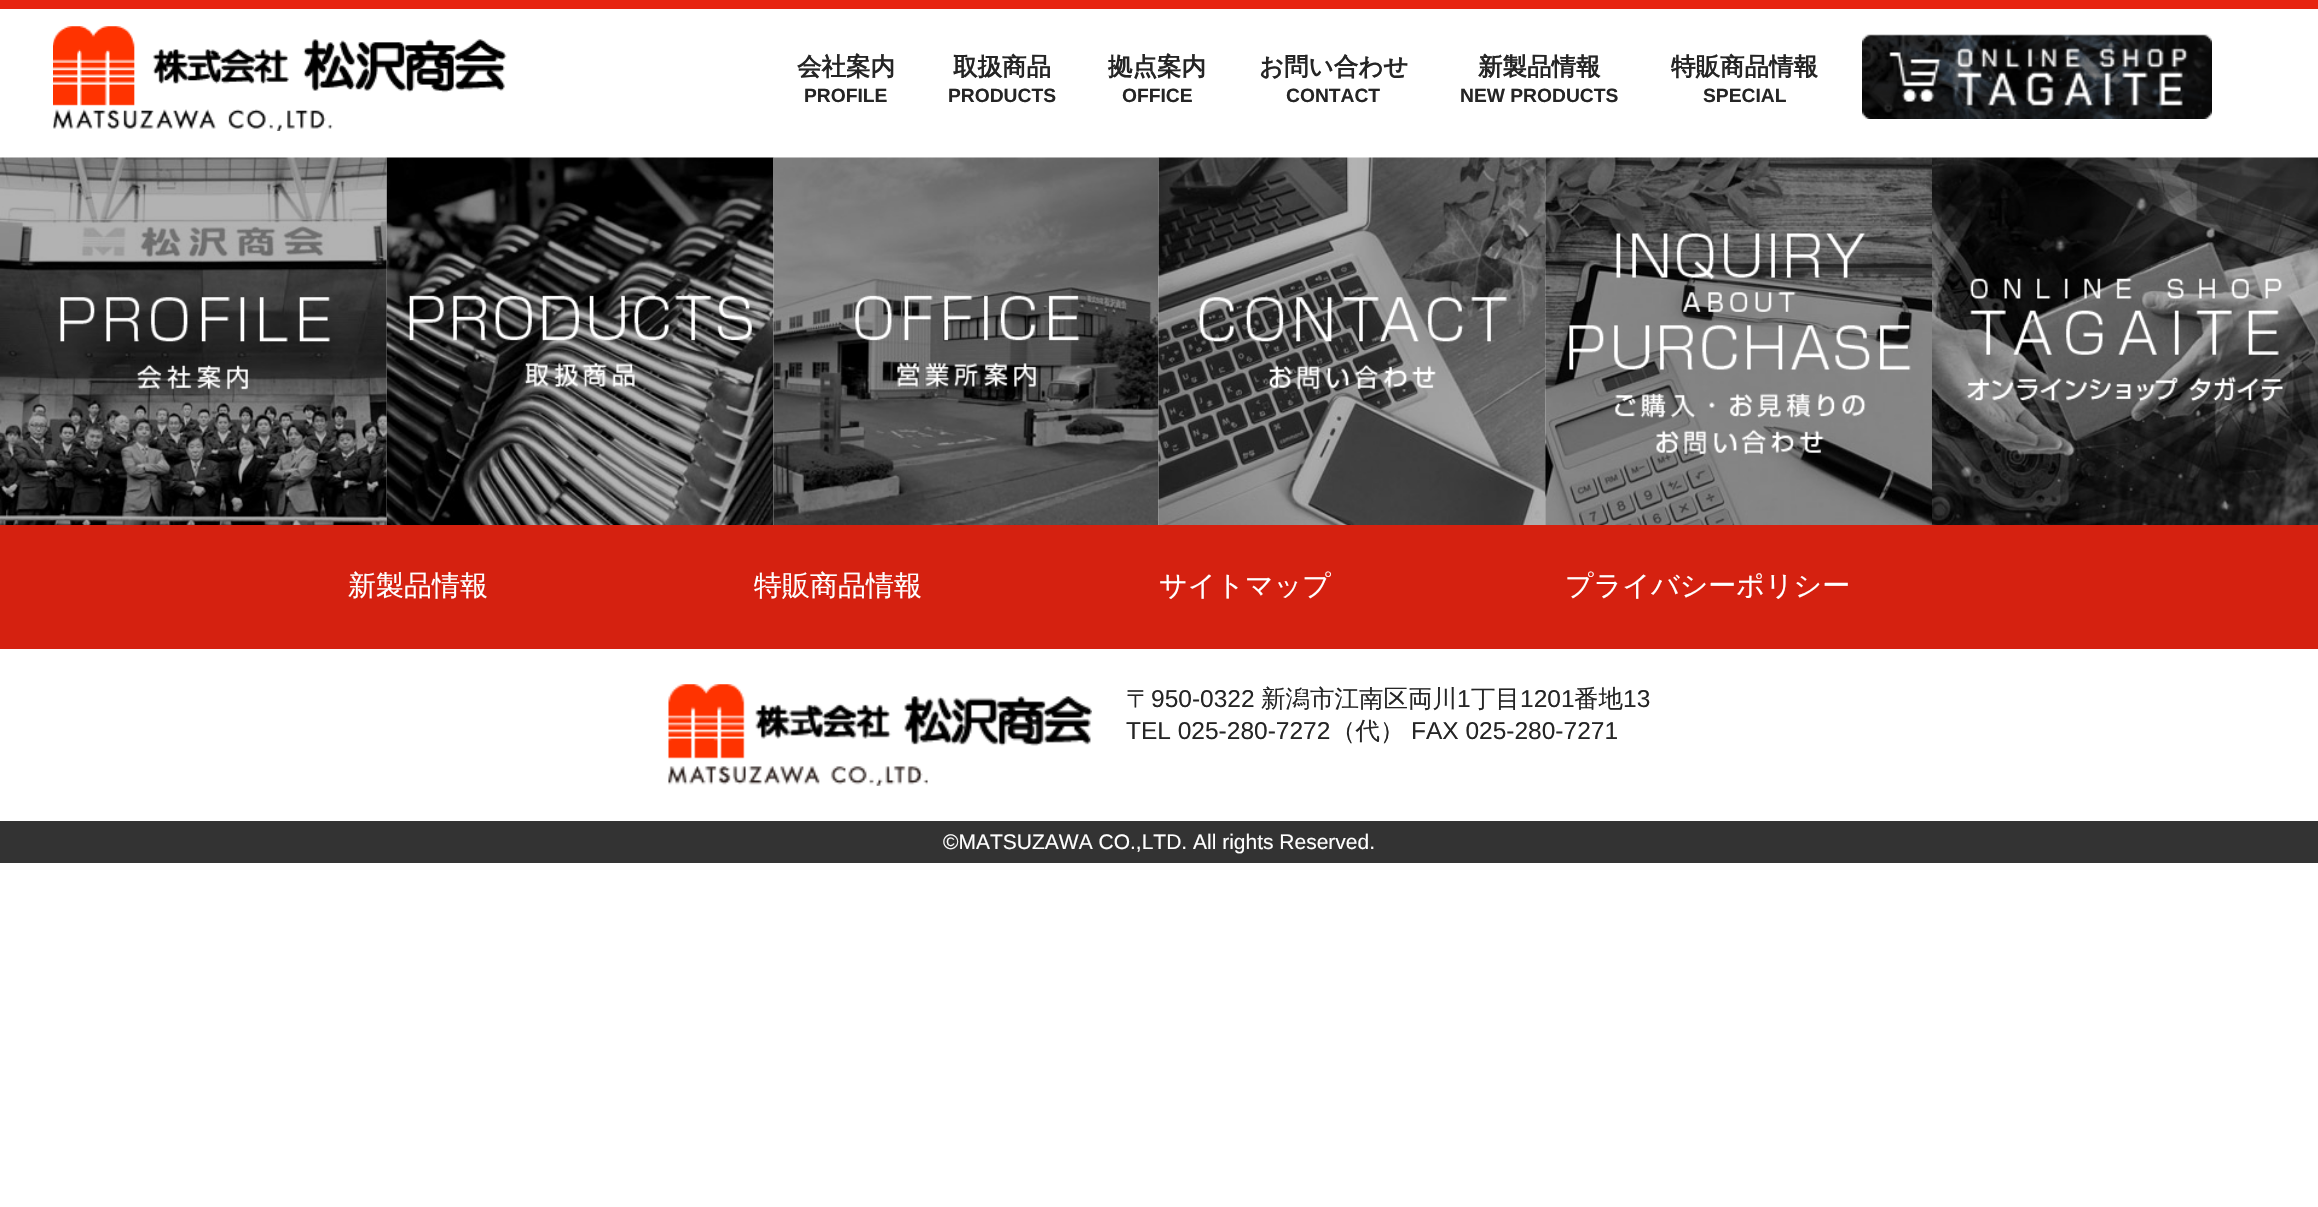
#include "include/core/SkBlurTypes.h"
#include "include/core/SkCanvas.h"
#include "include/core/SkData.h"
#include "include/core/SkFont.h"
#include "include/core/SkFontMgr.h"
#include "include/core/SkImage.h"
#include "include/core/SkMaskFilter.h"
#include "include/core/SkPaint.h"
#include "include/core/SkPathBuilder.h"
#include "include/core/SkTextBlob.h"
#include "include/effects/SkDashPathEffect.h"
#include "include/effects/SkGradientShader.h"
#include "include/utils/SkParsePath.h"

extern sk_sp<SkFontMgr> fontMgr;

void draw(SkCanvas* canvas) {
  SkPaint p;
  p.setAntiAlias(true);
  canvas->clear(SK_ColorWHITE);
  p.setColor(SkColorSetRGB(231, 36, 16));
  canvas->drawRect(SkRect::MakeLTRB(0, 0, 2318, 9), p);
  canvas->drawImageRect(SkImages::DeferredFromEncodedData(SkData::MakeFromFileName("images/1.png")), SkRect::MakeLTRB(53, 26, 507, 131), SkSamplingOptions());
  canvas->drawImageRect(SkImages::DeferredFromEncodedData(SkData::MakeFromFileName("images/2.png")), SkRect::MakeLTRB(1862, 34, 2212, 119), SkSamplingOptions());
  canvas->drawImageRect(SkImages::DeferredFromEncodedData(SkData::MakeFromFileName("images/3.png")), SkRect::MakeLTRB(0, 157, 387, 525), SkSamplingOptions());
  canvas->drawImageRect(SkImages::DeferredFromEncodedData(SkData::MakeFromFileName("images/4.png")), SkRect::MakeLTRB(386, 157, 774, 525), SkSamplingOptions());
  canvas->drawImageRect(SkImages::DeferredFromEncodedData(SkData::MakeFromFileName("images/5.png")), SkRect::MakeLTRB(773, 157, 1159, 525), SkSamplingOptions());
  canvas->drawImageRect(SkImages::DeferredFromEncodedData(SkData::MakeFromFileName("images/6.png")), SkRect::MakeLTRB(1158, 157, 1546, 525), SkSamplingOptions());
  canvas->drawImageRect(SkImages::DeferredFromEncodedData(SkData::MakeFromFileName("images/7.png")), SkRect::MakeLTRB(1545, 157, 1932, 525), SkSamplingOptions());
  canvas->drawImageRect(SkImages::DeferredFromEncodedData(SkData::MakeFromFileName("images/8.png")), SkRect::MakeLTRB(1932, 157, 2318, 525), SkSamplingOptions());
  p.setColor(SkColorSetRGB(213, 33, 16));
  canvas->drawRect(SkRect::MakeLTRB(0, 525, 2318, 649), p);
  canvas->drawImageRect(SkImages::DeferredFromEncodedData(SkData::MakeFromFileName("images/9.png")), SkRect::MakeLTRB(668, 684, 1092, 786), SkSamplingOptions());
  p.setColor(SkColorSetRGB(51, 51, 51));
  canvas->drawRect(SkRect::MakeLTRB(0, 821, 2318, 863), p);
  SkFont font1(fontMgr->matchFamilyStyle("WenQuanYi Zen Hei", SkFontStyle::Bold()), 24.5f);
  font1.setSubpixel(true);
  p.setColor(SkColorSetRGB(37, 37, 37));
  canvas->drawString("会社案内", 797, 75, font1, p);
  SkFont font2(fontMgr->matchFamilyStyle("Liberation Sans", SkFontStyle::Bold()), 19.25f);
  font2.setSubpixel(true);
  canvas->drawString("PROFILE", 804, 102, font2, p);
  canvas->drawString("取扱商品", 953, 75, font1, p);
  canvas->drawString("PRODUCTS", 948, 102, font2, p);
  canvas->drawString("拠点案内", 1108, 75, font1, p);
  canvas->drawString("OFFICE", 1122, 102, font2, p);
  canvas->drawString("お問い合わせ", 1259, 75, font1, p);
  canvas->drawString("CONTACT", 1286, 102, font2, p);
  canvas->drawString("新製品情報", 1478, 75, font1, p);
  canvas->drawString("NEW PRODUCTS", 1460, 102, font2, p);
  canvas->drawString("特販商品情報", 1671, 75, font1, p);
  canvas->drawString("SPECIAL", 1703, 102, font2, p);
  SkFont font3(fontMgr->matchFamilyStyle("WenQuanYi Zen Hei", SkFontStyle(500, SkFontStyle::kNormal_Width, SkFontStyle::kUpright_Slant)), 28);
  font3.setSubpixel(true);
  p.setColor(SK_ColorWHITE);
  canvas->drawString("新製品情報", 348, 595, font3, p);
  canvas->drawString("特販商品情報", 754, 595, font3, p);
  canvas->drawString("サイトマップ", 1159, 595, font3, p);
  canvas->drawString("プライバシーポリシー", 1565, 595, font3, p);
  SkFont font4(fontMgr->matchFamilyStyle("WenQuanYi Zen Hei", SkFontStyle(500, SkFontStyle::kNormal_Width, SkFontStyle::kUpright_Slant)), 24.5f);
  font4.setSubpixel(true);
  p.setColor(SkColorSetRGB(37, 37, 37));
  canvas->drawString("〒", 1126, 707, font4, p);
  SkFont font5(fontMgr->matchFamilyStyle("Liberation Sans", SkFontStyle::Normal()), 24.5f);
  font5.setSubpixel(true);
  canvas->drawString("950-0322", 1151, 707, font5, p);
  canvas->drawString("新潟市江南区両川", 1261, 707, font4, p);
  canvas->drawString("1", 1457, 707, font5, p);
  canvas->drawString("丁目", 1471, 707, font4, p);
  canvas->drawString("1201", 1520, 707, font5, p);
  canvas->drawString("番地", 1574, 707, font4, p);
  canvas->drawString("13", 1623, 707, font5, p);
  canvas->drawString("TEL 025-280-7272", 1126, 739, font5, p);
  canvas->drawString("（代）", 1331, 739, font4, p);
  canvas->drawString("FAX 025-280-7271", 1411, 739, font5, p);
  SkFont font6(fontMgr->matchFamilyStyle("Liberation Sans", SkFontStyle::Normal()), 21);
  font6.setSubpixel(true);
  p.setColor(SK_ColorWHITE);
  canvas->drawString("©MATSUZAWA CO.,LTD. All rights Reserved.", 943, 849, font6, p);
}
